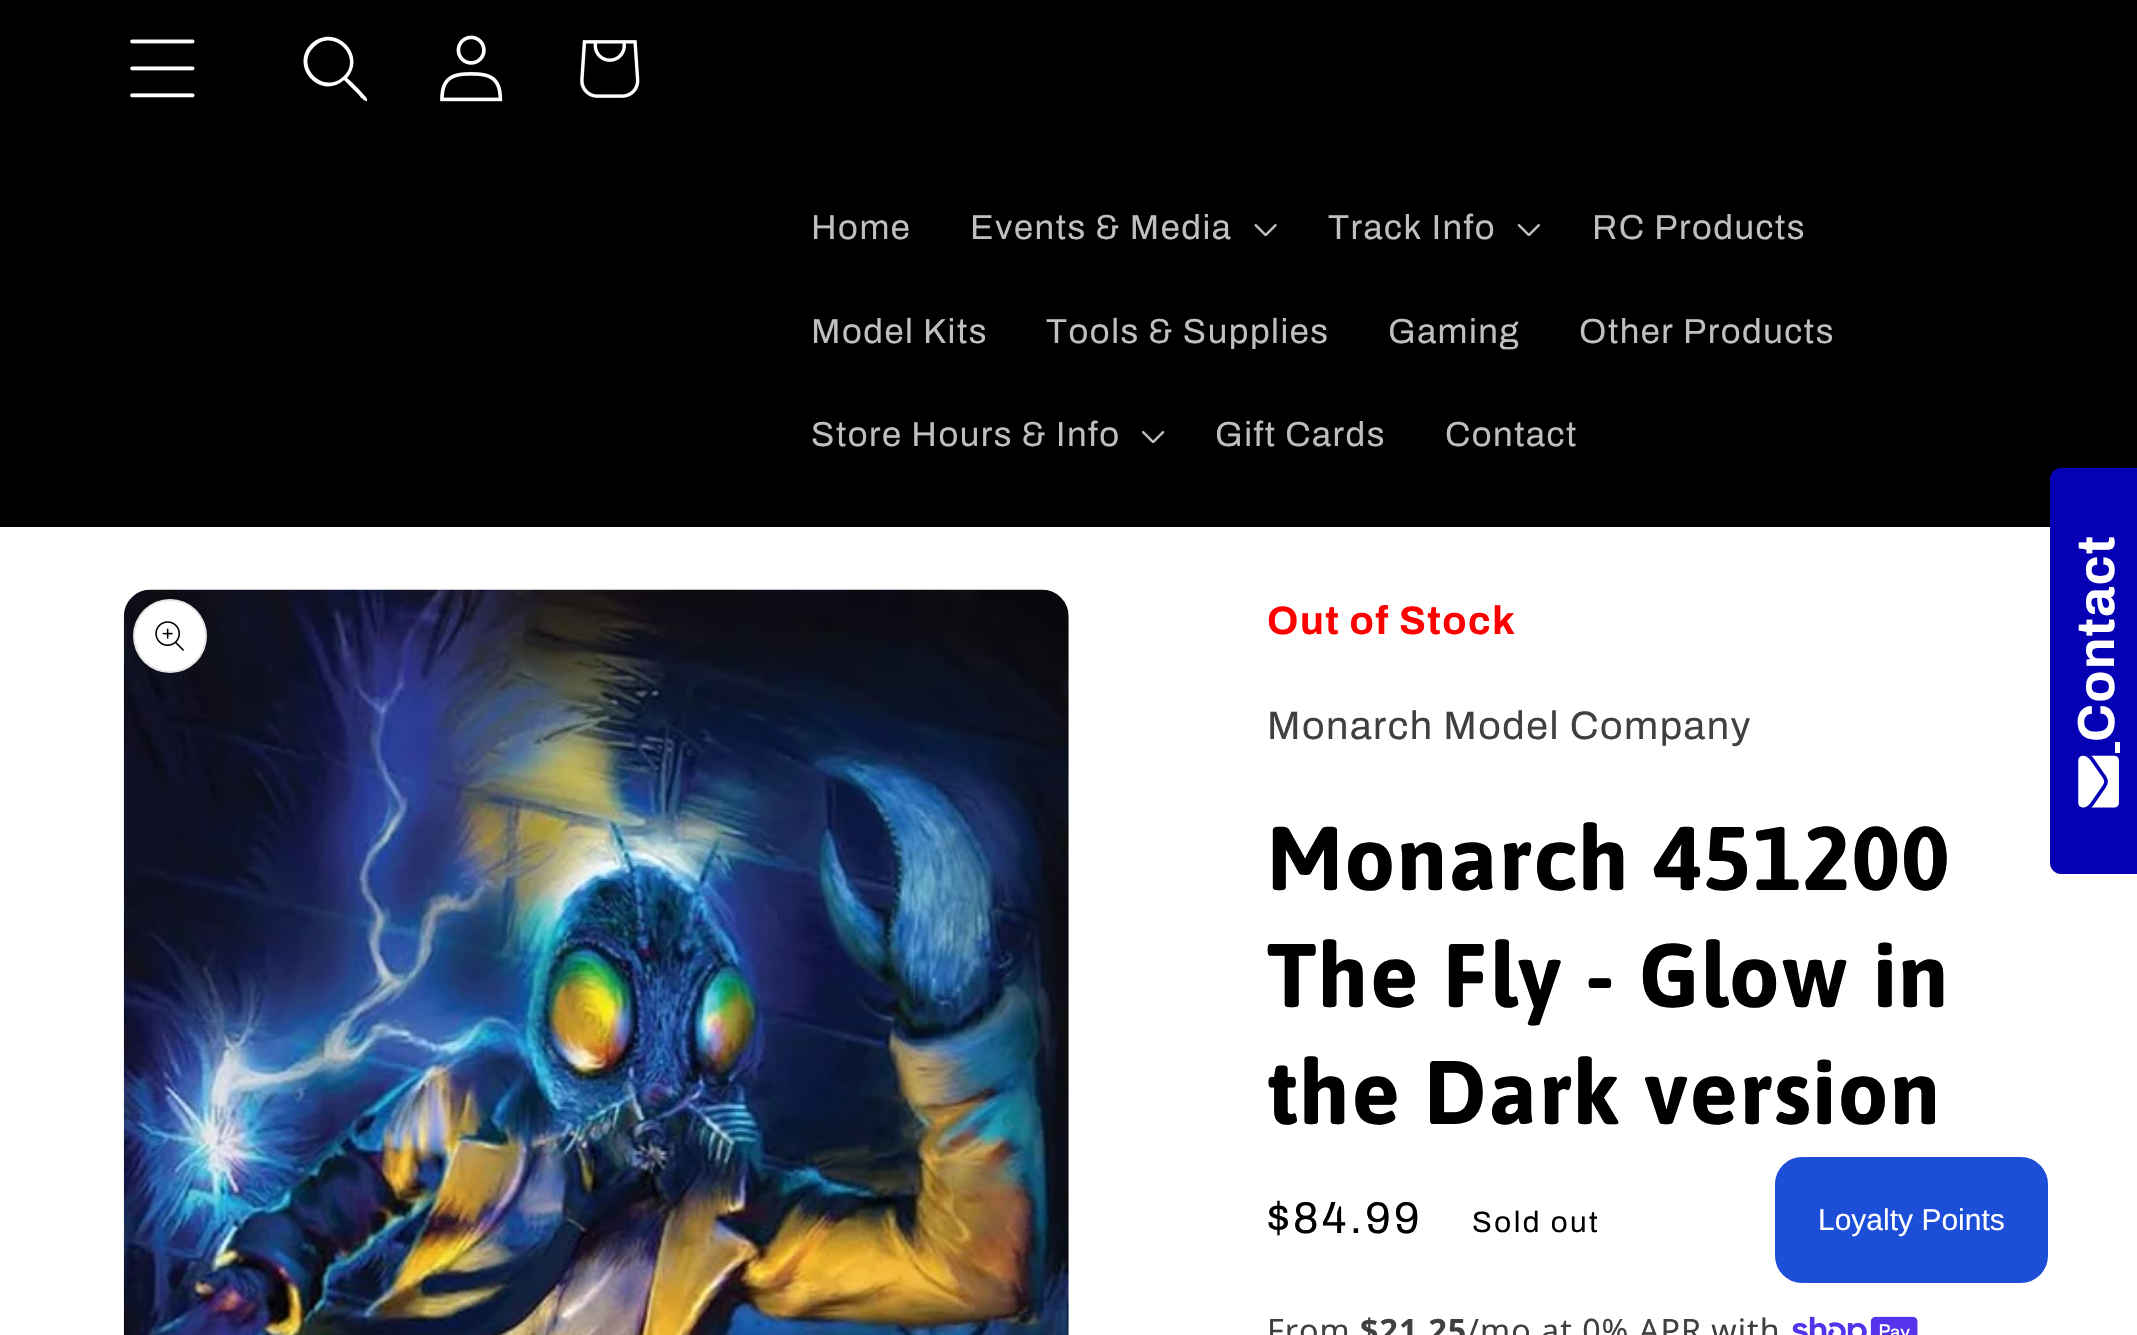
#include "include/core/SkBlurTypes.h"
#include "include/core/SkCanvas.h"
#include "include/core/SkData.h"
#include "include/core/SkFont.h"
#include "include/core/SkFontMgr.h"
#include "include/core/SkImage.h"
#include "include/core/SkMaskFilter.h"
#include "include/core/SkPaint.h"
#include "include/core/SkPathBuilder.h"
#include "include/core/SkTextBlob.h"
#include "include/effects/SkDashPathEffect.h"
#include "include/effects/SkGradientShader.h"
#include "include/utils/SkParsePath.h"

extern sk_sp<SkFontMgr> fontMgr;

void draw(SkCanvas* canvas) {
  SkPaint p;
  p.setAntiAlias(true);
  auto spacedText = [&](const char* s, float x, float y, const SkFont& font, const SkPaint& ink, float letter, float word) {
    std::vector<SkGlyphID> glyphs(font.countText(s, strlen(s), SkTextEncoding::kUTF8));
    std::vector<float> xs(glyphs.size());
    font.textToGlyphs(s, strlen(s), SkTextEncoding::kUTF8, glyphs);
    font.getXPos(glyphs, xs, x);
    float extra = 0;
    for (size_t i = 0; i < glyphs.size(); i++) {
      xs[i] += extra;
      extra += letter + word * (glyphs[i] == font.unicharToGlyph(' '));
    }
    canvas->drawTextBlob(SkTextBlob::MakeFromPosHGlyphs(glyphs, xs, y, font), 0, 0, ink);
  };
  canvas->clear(SK_ColorWHITE);
  p.setColor(SK_ColorBLACK);
  canvas->drawRect(SkRect::MakeLTRB(0, 0, 2137, 527), p);
  canvas->drawImageRect(SkImages::DeferredFromEncodedData(SkData::MakeFromFileName("images/1.png")), SkRect::MakeLTRB(130, 39, 195, 98), SkSamplingOptions());
  p.setColor(SK_ColorWHITE);
  canvas->drawPath(SkPathBuilder(SkPathFillType::kEvenOdd).moveTo(344, 76).cubicTo(324, 96, 294, 66, 314, 47).cubicTo(333, 27, 363, 57, 344, 76).close().moveTo(344, 80).cubicTo(320, 101, 289, 66, 311, 44).cubicTo(334, 22, 368, 54, 347, 78).cubicTo(350, 80, 367, 97, 367, 99).lineTo(367, 101).cubicTo(364, 102, 359, 95, 358, 94).close().detach(), p);
  canvas->drawImageRect(SkImages::DeferredFromEncodedData(SkData::MakeFromFileName("images/2.png")), SkRect::MakeLTRB(440, 35, 503, 102), SkSamplingOptions());
  canvas->drawImageRect(SkImages::DeferredFromEncodedData(SkData::MakeFromFileName("images/3.png")), SkRect::MakeLTRB(580, 40, 640, 98), SkSamplingOptions());
  canvas->drawImageRect(SkImages::DeferredFromEncodedData(SkData::MakeFromFileName("images/4.png")), SkRect::MakeLTRB(1254, 224, 1277, 236), SkSamplingOptions());
  canvas->drawImageRect(SkImages::DeferredFromEncodedData(SkData::MakeFromFileName("images/5.png")), SkRect::MakeLTRB(1517, 224, 1540, 236), SkSamplingOptions());
  canvas->drawImageRect(SkImages::DeferredFromEncodedData(SkData::MakeFromFileName("images/6.png")), SkRect::MakeLTRB(1142, 431, 1165, 443), SkSamplingOptions());
  canvas->drawImageRect(SkImages::DeferredFromEncodedData(SkData::MakeFromFileName("images/7.png")), SkRect::MakeLTRB(123, 589, 1069, 1335), SkSamplingOptions());
  canvas->drawCircle(170, 636, 37, p);
  p.setStyle(SkPaint::kStroke_Style);
  p.setStrokeWidth(2);
  p.setColor(SkColorSetARGB(26, 0, 0, 0));
  canvas->drawCircle(170, 636, 36, p);
  canvas->drawImageRect(SkImages::DeferredFromEncodedData(SkData::MakeFromFileName("images/8.png")), SkRect::MakeLTRB(155, 621, 184, 651), SkSamplingOptions());
  canvas->drawImageRect(SkImages::DeferredFromEncodedData(SkData::MakeFromFileName("images/9.png")), SkRect::MakeLTRB(1792, 1316, 1918, 1335), SkSamplingOptions());
  p.setStyle(SkPaint::kFill_Style);
  p.setColor(SkColorSetRGB(6, 0, 180));
  canvas->drawPath(SkPathBuilder().moveTo(2050, 863).lineTo(2050, 479).cubicTo(2050, 473, 2055, 468, 2061, 468).lineTo(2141, 468).lineTo(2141, 874).lineTo(2061, 874).cubicTo(2055, 874, 2050, 869, 2050, 863).close().detach(), p);
  p.setColor(SK_ColorWHITE);
  canvas->drawRect(SkRect::MakeLTRB(2115, 742, 2120, 753), p);
  canvas->drawImageRect(SkImages::DeferredFromEncodedData(SkData::MakeFromFileName("images/10.png")), SkRect::MakeLTRB(2078, 755, 2119, 808), SkSamplingOptions());
  p.setColor(SkColorSetRGB(29, 78, 216));
  canvas->drawRoundRect(SkRect::MakeLTRB(1775, 1157, 2048, 1283), 27, 27, p);
  SkFont font1(fontMgr->matchFamilyStyle("Archivo", SkFontStyle::Normal()), 34.75f);
  font1.setSubpixel(true);
  p.setColor(SkColorSetRGB(191, 191, 191));
  spacedText("Home", 811, 239, font1, p, 1.5f, 0);
  spacedText("Events & Media", 970, 239, font1, p, 1.5f, 0);
  spacedText("Track Info", 1328, 239, font1, p, 1.5f, 0);
  spacedText("RC Products", 1592, 239, font1, p, 1.5f, 0);
  spacedText("Model Kits", 811, 343, font1, p, 1.5f, 0);
  spacedText("Tools & Supplies", 1046, 343, font1, p, 1.5f, 0);
  spacedText("Gaming", 1388, 343, font1, p, 1.5f, 0);
  spacedText("Other Products", 1579, 343, font1, p, 1.5f, 0);
  spacedText("Store Hours & Info", 811, 446, font1, p, 1.5f, 0);
  spacedText("Gift Cards", 1215, 446, font1, p, 1.5f, 0);
  spacedText("Contact", 1445, 446, font1, p, 1.5f, 0);
  SkFont font2(fontMgr->matchFamilyStyle("Archivo", SkFontStyle::Bold()), 39.6f);
  font2.setSubpixel(true);
  p.setColor(SkColorSetRGB(255, 0, 0));
  spacedText("Out of Stock", 1267, 634, font2, p, 1.5f, 0);
  SkFont font3(fontMgr->matchFamilyStyle("Archivo", SkFontStyle::Normal()), 39.6f);
  font3.setSubpixel(true);
  p.setColor(SkColorSetRGB(64, 64, 64));
  spacedText("Monarch Model Company", 1267, 739, font3, p, 1.5f, 0);
  SkFont font4(fontMgr->matchFamilyStyle("Asap", SkFontStyle::Bold()), 90);
  font4.setSubpixel(true);
  p.setColor(SK_ColorBLACK);
  spacedText("Monarch 451200", 1267, 890, font4, p, 1.4f, 0);
  spacedText("The Fly - Glow in", 1267, 1007, font4, p, 1.4f, 0);
  spacedText("the Dark version", 1267, 1124, font4, p, 1.4f, 0);
  SkFont font5(fontMgr->matchFamilyStyle("Archivo", SkFontStyle::Normal()), 44.5f);
  font5.setSubpixel(true);
  spacedText("$84.99", 1267, 1233, font5, p, 3.25f, 0);
  SkFont font6(fontMgr->matchFamilyStyle("Archivo", SkFontStyle::Normal()), 29.5f);
  font6.setSubpixel(true);
  spacedText("Sold out", 1472, 1232, font6, p, 2.5f, 0);
  SkFont font7(fontMgr->matchFamilyStyle("Noto Sans", SkFontStyle::Normal()), 32.25f);
  font7.setSubpixel(true);
  p.setColor(SkColorSetRGB(64, 64, 64));
  spacedText("From", 1267, 1342, font7, p, 1, 0);
  SkFont font8(fontMgr->matchFamilyStyle("Noto Sans", SkFontStyle::Bold()), 32.25f);
  font8.setSubpixel(true);
  spacedText("$21.25", 1360, 1342, font8, p, 1, 0);
  spacedText("/mo at 0% APR with", 1467, 1342, font7, p, 1, 0);
  SkFont font9(fontMgr->matchFamilyStyle("Archivo", SkFontStyle::Bold()), 52);
  font9.setSubpixel(true);
  p.setColor(SK_ColorWHITE);
  canvas->save();
  canvas->rotate(-90, 2114, 742);
  spacedText("Contact", 2114, 742, font9, p, 1.5f, 0);
  canvas->restore();
  SkFont font10(fontMgr->matchFamilyStyle("Liberation Sans", SkFontStyle::Normal()), 30);
  font10.setSubpixel(true);
  canvas->drawString("Loyalty Points", 1818, 1230, font10, p);
}
